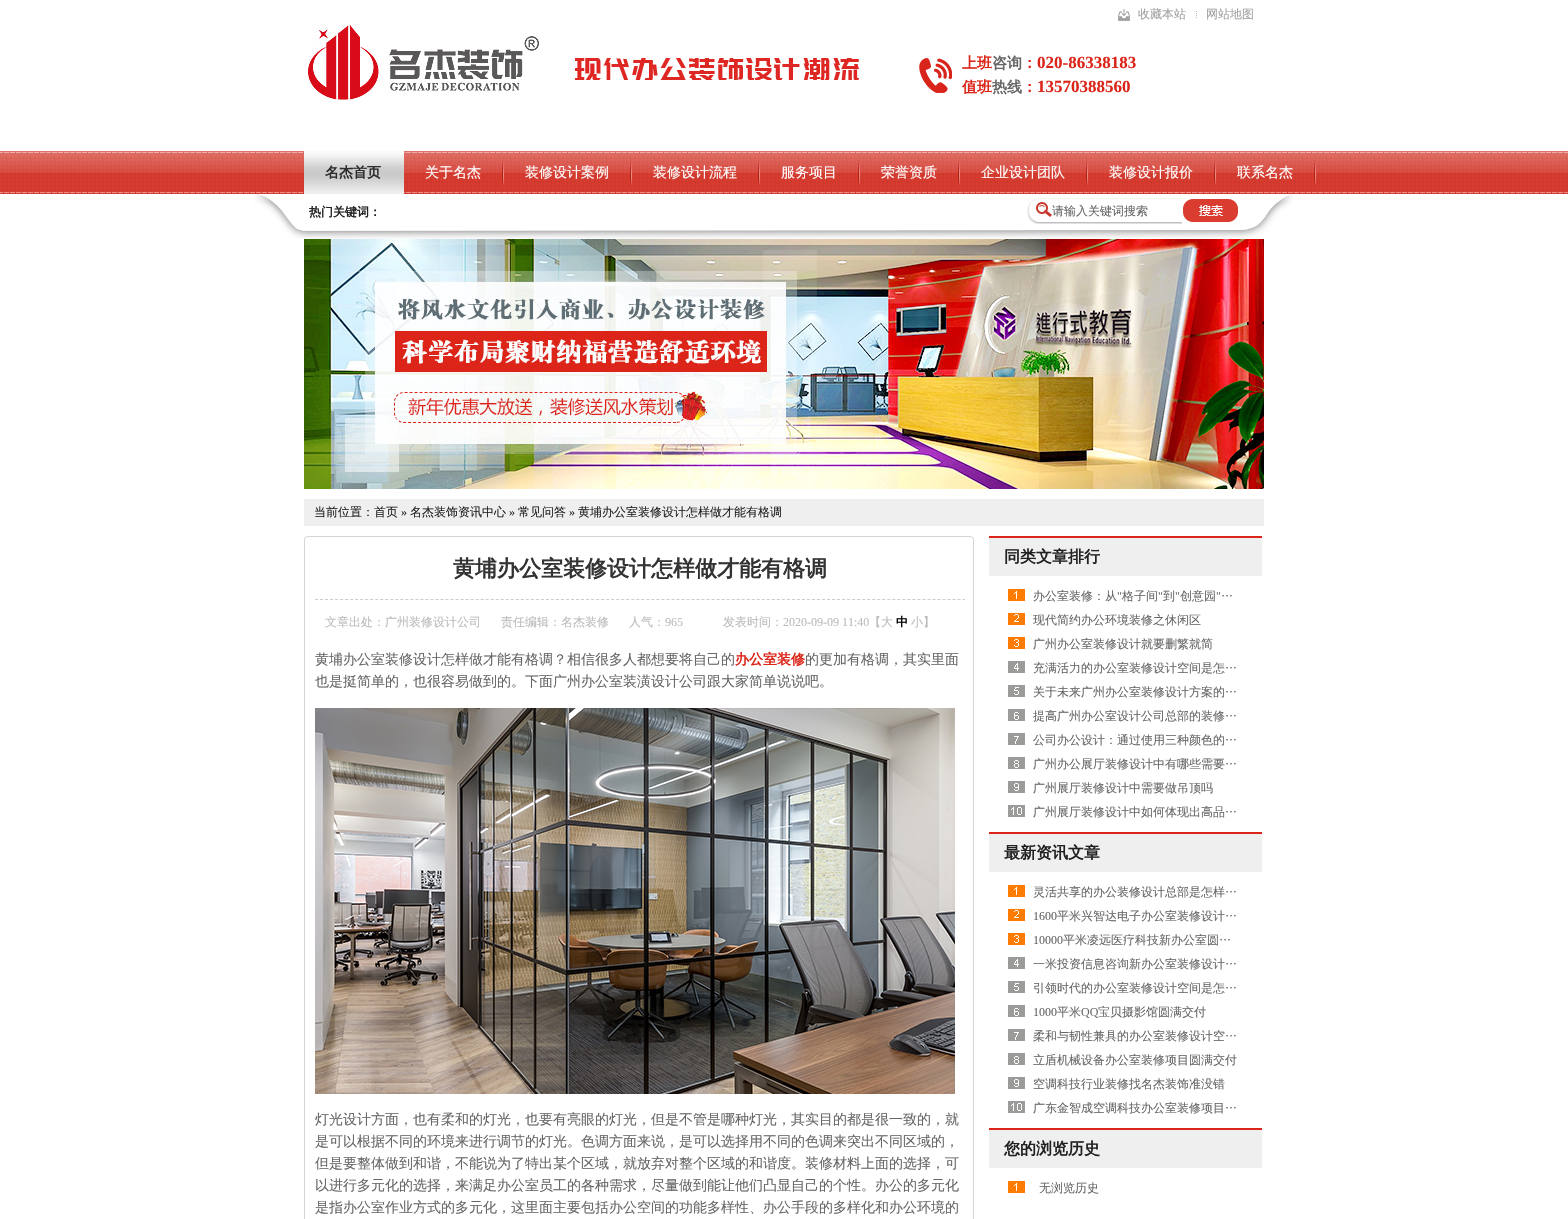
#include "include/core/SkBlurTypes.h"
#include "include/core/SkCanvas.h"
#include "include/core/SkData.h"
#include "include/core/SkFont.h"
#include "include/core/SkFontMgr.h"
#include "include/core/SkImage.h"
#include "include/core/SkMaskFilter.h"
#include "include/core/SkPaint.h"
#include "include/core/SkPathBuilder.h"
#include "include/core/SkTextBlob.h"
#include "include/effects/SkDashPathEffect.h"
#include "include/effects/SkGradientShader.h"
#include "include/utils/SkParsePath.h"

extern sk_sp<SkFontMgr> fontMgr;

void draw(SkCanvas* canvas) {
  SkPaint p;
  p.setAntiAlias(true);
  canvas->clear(SK_ColorWHITE);
  canvas->drawImageRect(SkImages::DeferredFromEncodedData(SkData::MakeFromFileName("images/1.png")), SkRect::MakeLTRB(0, 151, 1568, 194), SkSamplingOptions());
  canvas->drawImageRect(SkImages::DeferredFromEncodedData(SkData::MakeFromFileName("images/2.png")), SkRect::MakeLTRB(1118, 9, 1130, 21), SkSamplingOptions());
  canvas->drawImageRect(SkImages::DeferredFromEncodedData(SkData::MakeFromFileName("images/3.png")), SkRect::MakeLTRB(1196, 11, 1197, 18), SkSamplingOptions());
  canvas->drawImageRect(SkImages::DeferredFromEncodedData(SkData::MakeFromFileName("images/4.png")), SkRect::MakeLTRB(308, 25, 539, 102), SkSamplingOptions());
  canvas->drawImageRect(SkImages::DeferredFromEncodedData(SkData::MakeFromFileName("images/5.png")), SkRect::MakeLTRB(575, 56, 865, 80), SkSamplingOptions());
  canvas->drawImageRect(SkImages::DeferredFromEncodedData(SkData::MakeFromFileName("images/6.png")), SkRect::MakeLTRB(919, 58, 952, 93), SkSamplingOptions());
  canvas->drawImageRect(SkImages::DeferredFromEncodedData(SkData::MakeFromFileName("images/7.png")), SkRect::MakeLTRB(304, 151, 404, 194), SkSamplingOptions());
  canvas->drawImageRect(SkImages::DeferredFromEncodedData(SkData::MakeFromFileName("images/8.png")), SkRect::MakeLTRB(502, 160, 504, 185), SkSamplingOptions());
  canvas->drawImageRect(SkImages::DeferredFromEncodedData(SkData::MakeFromFileName("images/8.png")), SkRect::MakeLTRB(630, 160, 632, 185), SkSamplingOptions());
  canvas->drawImageRect(SkImages::DeferredFromEncodedData(SkData::MakeFromFileName("images/8.png")), SkRect::MakeLTRB(758, 160, 760, 185), SkSamplingOptions());
  canvas->drawImageRect(SkImages::DeferredFromEncodedData(SkData::MakeFromFileName("images/8.png")), SkRect::MakeLTRB(858, 160, 860, 185), SkSamplingOptions());
  canvas->drawImageRect(SkImages::DeferredFromEncodedData(SkData::MakeFromFileName("images/8.png")), SkRect::MakeLTRB(958, 160, 960, 185), SkSamplingOptions());
  canvas->drawImageRect(SkImages::DeferredFromEncodedData(SkData::MakeFromFileName("images/8.png")), SkRect::MakeLTRB(1086, 160, 1088, 185), SkSamplingOptions());
  canvas->drawImageRect(SkImages::DeferredFromEncodedData(SkData::MakeFromFileName("images/8.png")), SkRect::MakeLTRB(1214, 160, 1216, 185), SkSamplingOptions());
  canvas->drawImageRect(SkImages::DeferredFromEncodedData(SkData::MakeFromFileName("images/8.png")), SkRect::MakeLTRB(1314, 160, 1316, 185), SkSamplingOptions());
  canvas->drawImageRect(SkImages::DeferredFromEncodedData(SkData::MakeFromFileName("images/9.png")), SkRect::MakeLTRB(254, 194, 1293, 239), SkSamplingOptions());
  canvas->drawImageRect(SkImages::DeferredFromEncodedData(SkData::MakeFromFileName("images/10.png")), SkRect::MakeLTRB(1027, 198, 1182, 224), SkSamplingOptions());
  canvas->drawImageRect(SkImages::DeferredFromEncodedData(SkData::MakeFromFileName("images/11.png")), SkRect::MakeLTRB(1183, 199, 1238, 222), SkSamplingOptions());
  canvas->drawImageRect(SkImages::DeferredFromEncodedData(SkData::MakeFromFileName("images/12.png")), SkRect::MakeLTRB(304, 239, 1264, 489), SkSamplingOptions());
  p.setColor(SkColorSetRGB(239, 239, 239));
  canvas->drawRect(SkRect::MakeLTRB(304, 499, 1264, 526), p);
  canvas->drawImageRect(SkImages::DeferredFromEncodedData(SkData::MakeFromFileName("images/13.png")), SkRect::MakeLTRB(304, 536, 974, 539), SkSamplingOptions());
  p.setColor(SkColorSetRGB(213, 213, 213));
  canvas->drawRect(SkRect::MakeLTRB(973, 539, 974, 1219), p);
  canvas->drawRect(SkRect::MakeLTRB(304, 539, 305, 1219), p);
  p.setStyle(SkPaint::kStroke_Style);
  p.setStrokeWidth(1);
  p.setColor(SkColorSetRGB(204, 204, 204));
  p.setPathEffect(SkDashPathEffect::Make({{3, 2.02f}}, 0));
  canvas->drawPath(SkPathBuilder().moveTo(315, 599.5f).lineTo(965, 599.5f).detach(), p);
  p.setPathEffect(nullptr);
  canvas->drawImageRect(SkImages::DeferredFromEncodedData(SkData::MakeFromFileName("images/14.png")), SkRect::MakeLTRB(315, 708, 955, 1094), SkSamplingOptions());
  p.setStyle(SkPaint::kFill_Style);
  p.setColor(SkColorSetRGB(239, 239, 239));
  canvas->drawRect(SkRect::MakeLTRB(989, 538, 1262, 576), p);
  p.setColor(SkColorSetRGB(220, 37, 25));
  canvas->drawRect(SkRect::MakeLTRB(989, 536, 1262, 538), p);
  canvas->drawImageRect(SkImages::DeferredFromEncodedData(SkData::MakeFromFileName("images/15.png")), SkRect::MakeLTRB(1008, 589, 1025, 817), SkSamplingOptions());
  p.setColor(SkColorSetRGB(239, 239, 239));
  canvas->drawRect(SkRect::MakeLTRB(989, 834, 1262, 872), p);
  p.setColor(SkColorSetRGB(220, 37, 25));
  canvas->drawRect(SkRect::MakeLTRB(989, 832, 1262, 834), p);
  canvas->drawImageRect(SkImages::DeferredFromEncodedData(SkData::MakeFromFileName("images/15.png")), SkRect::MakeLTRB(1008, 885, 1025, 1113), SkSamplingOptions());
  p.setColor(SkColorSetRGB(239, 239, 239));
  canvas->drawRect(SkRect::MakeLTRB(989, 1130, 1262, 1168), p);
  p.setColor(SkColorSetRGB(220, 37, 25));
  canvas->drawRect(SkRect::MakeLTRB(989, 1128, 1262, 1130), p);
  canvas->drawImageRect(SkImages::DeferredFromEncodedData(SkData::MakeFromFileName("images/16.png")), SkRect::MakeLTRB(1008, 1181, 1025, 1193), SkSamplingOptions());
  SkFont font1(fontMgr->matchFamilyStyle("WenQuanYi Zen Hei", SkFontStyle(500, SkFontStyle::kNormal_Width, SkFontStyle::kUpright_Slant)), 12);
  font1.setSubpixel(true);
  p.setColor(SkColorSetRGB(161, 161, 161));
  canvas->drawString("收藏本站", 1138, 18, font1, p);
  canvas->drawString("网站地图", 1206, 18, font1, p);
  SkFont font2(fontMgr->matchFamilyStyle("WenQuanYi Zen Hei", SkFontStyle::Bold()), 15);
  font2.setSubpixel(true);
  p.setColor(SkColorSetRGB(220, 37, 25));
  canvas->drawString("上班", 962, 68, font2, p);
  p.setColor(SkColorSetRGB(102, 102, 102));
  canvas->drawString("咨询", 992, 68, font2, p);
  p.setColor(SkColorSetRGB(220, 37, 25));
  canvas->drawString("：", 1022, 68, font2, p);
  SkFont font3(fontMgr->matchFamilyStyle("Liberation Serif", SkFontStyle::Bold()), 17);
  font3.setSubpixel(true);
  canvas->drawString("020-86338183", 1037, 68, font3, p);
  canvas->drawString("值班", 962, 92, font2, p);
  p.setColor(SkColorSetRGB(102, 102, 102));
  canvas->drawString("热线", 992, 92, font2, p);
  p.setColor(SkColorSetRGB(220, 37, 25));
  canvas->drawString("：", 1022, 92, font2, p);
  canvas->drawString("13570388560", 1037, 92, font3, p);
  SkFont font4(fontMgr->matchFamilyStyle("WenQuanYi Zen Hei", SkFontStyle::Bold()), 14);
  font4.setSubpixel(true);
  p.setColor(SkColorSetRGB(45, 45, 45));
  canvas->drawString("名杰首页", 325, 177, font4, p);
  SkFont font5(fontMgr->matchFamilyStyle("WenQuanYi Zen Hei", SkFontStyle(500, SkFontStyle::kNormal_Width, SkFontStyle::kUpright_Slant)), 14);
  font5.setSubpixel(true);
  p.setColor(SK_ColorWHITE);
  canvas->drawString("关于名杰", 425, 177, font5, p);
  canvas->drawString("装修设计案例", 525, 177, font5, p);
  canvas->drawString("装修设计流程", 653, 177, font5, p);
  canvas->drawString("服务项目", 781, 177, font5, p);
  canvas->drawString("荣誉资质", 881, 177, font5, p);
  canvas->drawString("企业设计团队", 981, 177, font5, p);
  canvas->drawString("装修设计报价", 1109, 177, font5, p);
  canvas->drawString("联系名杰", 1237, 177, font5, p);
  SkFont font6(fontMgr->matchFamilyStyle("WenQuanYi Zen Hei", SkFontStyle::Bold()), 12);
  font6.setSubpixel(true);
  p.setColor(SkColorSetRGB(34, 34, 34));
  canvas->drawString("热门关键词：", 309, 216, font6, p);
  p.setColor(SkColorSetRGB(102, 102, 102));
  canvas->drawString("请输入关键词搜索", 1052, 215, font1, p);
  p.setColor(SkColorSetRGB(34, 34, 34));
  canvas->drawString("当前位置：首页", 314, 516, font1, p);
  SkFont font7(fontMgr->matchFamilyStyle("Liberation Serif", SkFontStyle::Normal()), 12);
  font7.setSubpixel(true);
  canvas->drawString("»", 401, 516, font7, p);
  canvas->drawString("名杰装饰资讯中心", 410, 516, font1, p);
  canvas->drawString("»", 509, 516, font7, p);
  canvas->drawString("常见问答", 518, 516, font1, p);
  canvas->drawString("»", 569, 516, font7, p);
  canvas->drawString("黄埔办公室装修设计怎样做才能有格调", 578, 516, font1, p);
  SkFont font8(fontMgr->matchFamilyStyle("WenQuanYi Zen Hei", SkFontStyle::Bold()), 22);
  font8.setSubpixel(true);
  p.setColor(SkColorSetRGB(51, 51, 51));
  canvas->drawString("黄埔办公室装修设计怎样做才能有格调", 453, 576, font8, p);
  p.setColor(SkColorSetRGB(188, 187, 187));
  canvas->drawString("文章出处：广州装修设计公司", 325, 626, font1, p);
  canvas->drawString("责任编辑：名杰装修", 501, 626, font1, p);
  canvas->drawString("人气：", 629, 626, font1, p);
  canvas->drawString("965", 665, 626, font7, p);
  canvas->drawString("发表时间：", 723, 626, font1, p);
  canvas->drawString("2020-09-09 11:40", 783, 626, font7, p);
  canvas->drawString("【大", 869, 626, font1, p);
  p.setColor(SK_ColorBLACK);
  canvas->drawString("中", 896, 626, font6, p);
  p.setColor(SkColorSetRGB(188, 187, 187));
  canvas->drawString("小】", 911, 626, font1, p);
  p.setColor(SkColorSetRGB(102, 102, 102));
  canvas->drawString("黄埔办公室装修设计怎样做才能有格调？相信很多人都想要将自己的", 315, 664, font5, p);
  p.setColor(SkColorSetRGB(220, 37, 25));
  canvas->drawString("办公室装修", 735, 664, font4, p);
  p.setColor(SkColorSetRGB(102, 102, 102));
  canvas->drawString("的更加有格调，其实里面", 805, 664, font5, p);
  canvas->drawString("也是挺简单的，也很容易做到的。下面广州办公室装潢设计公司跟大家简单说说吧。", 315, 686, font5, p);
  canvas->drawString("灯光设计方面，也有柔和的灯光，也要有亮眼的灯光，但是不管是哪种灯光，其实目的都是很一致的，就", 315, 1124, font5, p);
  canvas->drawString("是可以根据不同的环境来进行调节的灯光。色调方面来说，是可以选择用不同的色调来突出不同区域的，", 315, 1146, font5, p);
  canvas->drawString("但是要整体做到和谐，不能说为了特出某个区域，就放弃对整个区域的和谐度。装修材料上面的选择，可", 315, 1168, font5, p);
  canvas->drawString("以进行多元化的选择，来满足办公室员工的各种需求，尽量做到能让他们凸显自己的个性。办公的多元化", 315, 1190, font5, p);
  canvas->drawString("是指办公室作业方式的多元化，这里面主要包括办公空间的功能多样性、办公手段的多样化和办公环境的", 315, 1212, font5, p);
  SkFont font9(fontMgr->matchFamilyStyle("WenQuanYi Zen Hei", SkFontStyle::Bold()), 16);
  font9.setSubpixel(true);
  p.setColor(SkColorSetRGB(34, 34, 34));
  canvas->drawString("同类文章排行", 1004, 562, font9, p);
  p.setColor(SkColorSetRGB(102, 102, 102));
  canvas->drawString("办公室装修：从", 1033, 600, font1, p);
  canvas->drawString("\"", 1117, 600, font7, p);
  canvas->drawString("格子间", 1122, 600, font1, p);
  canvas->drawString("\"", 1158, 600, font7, p);
  canvas->drawString("到", 1163, 600, font1, p);
  canvas->drawString("\"", 1175, 600, font7, p);
  canvas->drawString("创意园", 1180, 600, font1, p);
  canvas->drawString("\"", 1216, 600, font7, p);
  canvas->drawString("…", 1221, 600, font1, p);
  canvas->drawString("现代简约办公环境装修之休闲区", 1033, 624, font1, p);
  canvas->drawString("广州办公室装修设计就要删繁就简", 1033, 648, font1, p);
  canvas->drawString("充满活力的办公室装修设计空间是怎…", 1033, 672, font1, p);
  canvas->drawString("关于未来广州办公室装修设计方案的…", 1033, 696, font1, p);
  canvas->drawString("提高广州办公室设计公司总部的装修…", 1033, 720, font1, p);
  canvas->drawString("公司办公设计：通过使用三种颜色的…", 1033, 744, font1, p);
  canvas->drawString("广州办公展厅装修设计中有哪些需要…", 1033, 768, font1, p);
  canvas->drawString("广州展厅装修设计中需要做吊顶吗", 1033, 792, font1, p);
  canvas->drawString("广州展厅装修设计中如何体现出高品…", 1033, 816, font1, p);
  p.setColor(SkColorSetRGB(34, 34, 34));
  canvas->drawString("最新资讯文章", 1004, 858, font9, p);
  p.setColor(SkColorSetRGB(102, 102, 102));
  canvas->drawString("灵活共享的办公装修设计总部是怎样…", 1033, 896, font1, p);
  canvas->drawString("1600", 1033, 920, font7, p);
  canvas->drawString("平米兴智达电子办公室装修设计…", 1057, 920, font1, p);
  canvas->drawString("10000", 1033, 944, font7, p);
  canvas->drawString("平米凌远医疗科技新办公室圆…", 1063, 944, font1, p);
  canvas->drawString("一米投资信息咨询新办公室装修设计…", 1033, 968, font1, p);
  canvas->drawString("引领时代的办公室装修设计空间是怎…", 1033, 992, font1, p);
  canvas->drawString("1000", 1033, 1016, font7, p);
  canvas->drawString("平米", 1057, 1016, font1, p);
  canvas->drawString("QQ", 1081, 1016, font7, p);
  canvas->drawString("宝贝摄影馆圆满交付", 1098, 1016, font1, p);
  canvas->drawString("柔和与韧性兼具的办公室装修设计空…", 1033, 1040, font1, p);
  canvas->drawString("立盾机械设备办公室装修项目圆满交付", 1033, 1064, font1, p);
  canvas->drawString("空调科技行业装修找名杰装饰准没错", 1033, 1088, font1, p);
  canvas->drawString("广东金智成空调科技办公室装修项目…", 1033, 1112, font1, p);
  p.setColor(SkColorSetRGB(34, 34, 34));
  canvas->drawString("您的浏览历史", 1004, 1154, font9, p);
  p.setColor(SkColorSetRGB(102, 102, 102));
  canvas->drawString("无浏览历史", 1039, 1192, font1, p);
}
